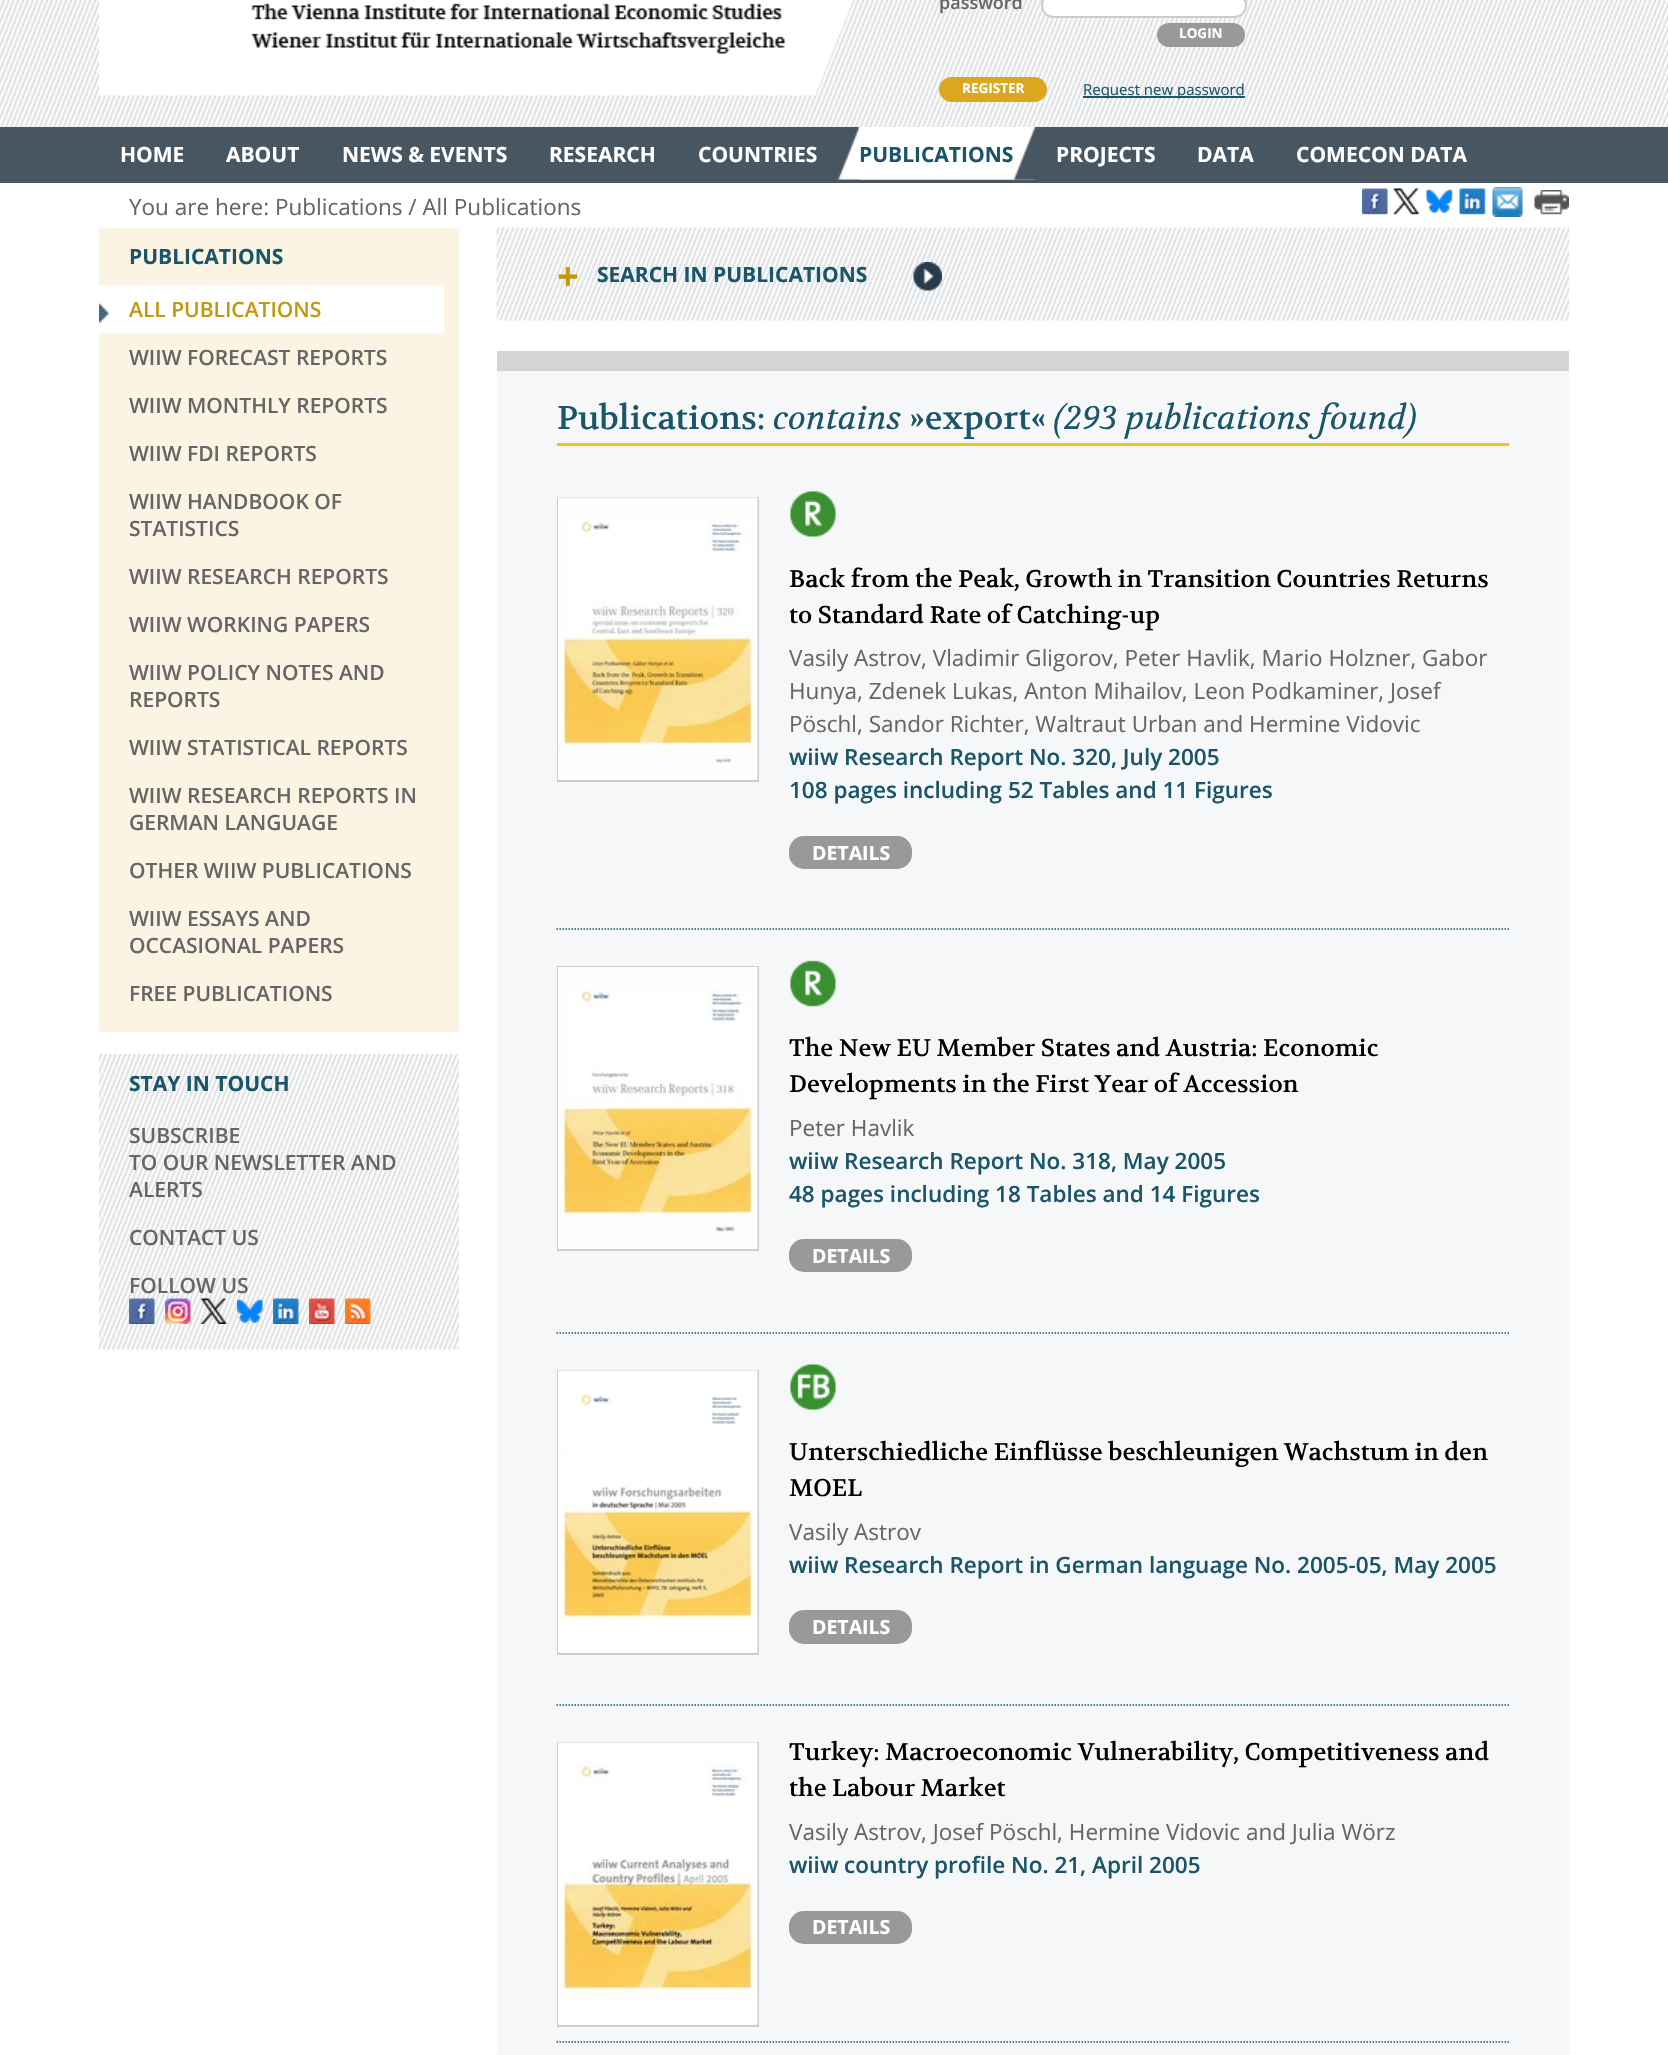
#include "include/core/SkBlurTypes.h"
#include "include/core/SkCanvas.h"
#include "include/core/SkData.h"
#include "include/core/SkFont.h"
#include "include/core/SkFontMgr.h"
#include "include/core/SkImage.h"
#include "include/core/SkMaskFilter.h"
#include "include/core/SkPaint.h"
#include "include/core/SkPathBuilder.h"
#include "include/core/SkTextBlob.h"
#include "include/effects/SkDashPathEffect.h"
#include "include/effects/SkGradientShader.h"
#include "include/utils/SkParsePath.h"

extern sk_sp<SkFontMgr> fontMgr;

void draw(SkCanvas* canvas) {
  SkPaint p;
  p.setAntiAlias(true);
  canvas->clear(SK_ColorWHITE);
  canvas->drawImageRect(SkImages::DeferredFromEncodedData(SkData::MakeFromFileName("images/1.png")), SkRect::MakeLTRB(0, 0, 1668, 127), SkSamplingOptions());
  canvas->drawImageRect(SkImages::DeferredFromEncodedData(SkData::MakeFromFileName("images/2.png")), SkRect::MakeLTRB(99, 0, 854, 96), SkSamplingOptions());
  p.setColor(SK_ColorWHITE);
  canvas->drawRoundRect(SkRect::MakeLTRB(1042, -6, 1246, 17), 11.5f, 11.5f, p);
  p.setStyle(SkPaint::kStroke_Style);
  p.setStrokeWidth(2);
  p.setColor(SkColorSetRGB(204, 204, 204));
  canvas->drawRoundRect(SkRect::MakeLTRB(1042, -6, 1246, 17), 11.5f, 11.5f, p);
  p.setStyle(SkPaint::kFill_Style);
  p.setColor(SkColorSetRGB(153, 153, 153));
  canvas->drawRoundRect(SkRect::MakeLTRB(1157, 23, 1245, 47), 12, 12, p);
  p.setColor(SkColorSetRGB(219, 167, 30));
  canvas->drawRoundRect(SkRect::MakeLTRB(939, 77, 1047, 102), 12.5f, 12.5f, p);
  p.setColor(SkColorSetRGB(26, 85, 105));
  canvas->drawRect(SkRect::MakeLTRB(1083, 96, 1245, 98), p);
  p.setColor(SkColorSetRGB(71, 86, 96));
  canvas->drawRect(SkRect::MakeLTRB(0, 127, 1668, 183), p);
  canvas->drawImageRect(SkImages::DeferredFromEncodedData(SkData::MakeFromFileName("images/3.png")), SkRect::MakeLTRB(838, 127, 1035, 180), SkSamplingOptions());
  canvas->drawImageRect(SkImages::DeferredFromEncodedData(SkData::MakeFromFileName("images/4.png")), SkRect::MakeLTRB(859, 127, 1035, 180), SkSamplingOptions());
  canvas->drawImageRect(SkImages::DeferredFromEncodedData(SkData::MakeFromFileName("images/5.png")), SkRect::MakeLTRB(1362, 188, 1388, 215), SkSamplingOptions());
  canvas->drawImageRect(SkImages::DeferredFromEncodedData(SkData::MakeFromFileName("images/6.png")), SkRect::MakeLTRB(1393, 188, 1420, 215), SkSamplingOptions());
  canvas->drawImageRect(SkImages::DeferredFromEncodedData(SkData::MakeFromFileName("images/7.png")), SkRect::MakeLTRB(1426, 188, 1453, 214), SkSamplingOptions());
  canvas->drawImageRect(SkImages::DeferredFromEncodedData(SkData::MakeFromFileName("images/8.png")), SkRect::MakeLTRB(1459, 188, 1486, 215), SkSamplingOptions());
  canvas->drawImageRect(SkImages::DeferredFromEncodedData(SkData::MakeFromFileName("images/9.png")), SkRect::MakeLTRB(1492, 187, 1523, 217), SkSamplingOptions());
  canvas->drawImageRect(SkImages::DeferredFromEncodedData(SkData::MakeFromFileName("images/10.png")), SkRect::MakeLTRB(1534, 190, 1569, 215), SkSamplingOptions());
  p.setColor(SkColorSetRGB(251, 244, 226));
  canvas->drawRect(SkRect::MakeLTRB(99, 228, 459, 1032), p);
  p.setColor(SK_ColorWHITE);
  canvas->drawRect(SkRect::MakeLTRB(99, 285, 444, 333), p);
  canvas->drawImageRect(SkImages::DeferredFromEncodedData(SkData::MakeFromFileName("images/11.png")), SkRect::MakeLTRB(99, 302, 110, 324), SkSamplingOptions());
  canvas->drawImageRect(SkImages::DeferredFromEncodedData(SkData::MakeFromFileName("images/12.png")), SkRect::MakeLTRB(99, 1054, 459, 1350), SkSamplingOptions());
  canvas->drawImageRect(SkImages::DeferredFromEncodedData(SkData::MakeFromFileName("images/13.png")), SkRect::MakeLTRB(129, 1298, 155, 1324), SkSamplingOptions());
  canvas->drawImageRect(SkImages::DeferredFromEncodedData(SkData::MakeFromFileName("images/14.png")), SkRect::MakeLTRB(165, 1298, 191, 1324), SkSamplingOptions());
  canvas->drawImageRect(SkImages::DeferredFromEncodedData(SkData::MakeFromFileName("images/15.png")), SkRect::MakeLTRB(201, 1298, 227, 1324), SkSamplingOptions());
  canvas->drawImageRect(SkImages::DeferredFromEncodedData(SkData::MakeFromFileName("images/16.png")), SkRect::MakeLTRB(237, 1298, 263, 1324), SkSamplingOptions());
  canvas->drawImageRect(SkImages::DeferredFromEncodedData(SkData::MakeFromFileName("images/17.png")), SkRect::MakeLTRB(273, 1298, 299, 1324), SkSamplingOptions());
  canvas->drawImageRect(SkImages::DeferredFromEncodedData(SkData::MakeFromFileName("images/18.png")), SkRect::MakeLTRB(309, 1298, 335, 1324), SkSamplingOptions());
  canvas->drawImageRect(SkImages::DeferredFromEncodedData(SkData::MakeFromFileName("images/19.png")), SkRect::MakeLTRB(345, 1298, 371, 1324), SkSamplingOptions());
  canvas->drawImageRect(SkImages::DeferredFromEncodedData(SkData::MakeFromFileName("images/20.png")), SkRect::MakeLTRB(496, 227, 1569, 321), SkSamplingOptions());
  canvas->drawImageRect(SkImages::DeferredFromEncodedData(SkData::MakeFromFileName("images/21.png")), SkRect::MakeLTRB(913, 262, 942, 291), SkSamplingOptions());
  p.setColor(SkColorSetRGB(246, 247, 248));
  canvas->drawRect(SkRect::MakeLTRB(497, 371, 1569, 2055), p);
  p.setColor(SkColorSetRGB(210, 212, 213));
  canvas->drawRect(SkRect::MakeLTRB(497, 351, 1569, 371), p);
  p.setColor(SkColorSetRGB(244, 193, 33));
  canvas->drawRect(SkRect::MakeLTRB(557, 443, 1509, 446), p);
  p.setStyle(SkPaint::kStroke_Style);
  p.setStrokeWidth(1.5f);
  p.setColor(SkColorSetRGB(26, 85, 105));
  p.setPathEffect(SkDashPathEffect::Make({{1.5f, 1.5f}}, 0));
  canvas->drawPath(SkPathBuilder().moveTo(556.5f, 929).lineTo(1509, 929).detach(), p);
  p.setPathEffect(nullptr);
  p.setStrokeWidth(2);
  p.setColor(SkColorSetRGB(204, 204, 204));
  canvas->drawRect(SkRect::MakeLTRB(558, 498, 758, 781), p);
  canvas->drawImageRect(SkImages::DeferredFromEncodedData(SkData::MakeFromFileName("images/22.png")), SkRect::MakeLTRB(558, 497, 758, 780), SkSamplingOptions());
  canvas->drawImageRect(SkImages::DeferredFromEncodedData(SkData::MakeFromFileName("images/23.png")), SkRect::MakeLTRB(790, 491, 836, 537), SkSamplingOptions());
  p.setStyle(SkPaint::kFill_Style);
  p.setColor(SkColorSetRGB(153, 153, 153));
  canvas->drawRoundRect(SkRect::MakeLTRB(789, 836, 912, 869), 15, 15, p);
  p.setStyle(SkPaint::kStroke_Style);
  p.setStrokeWidth(1.5f);
  p.setColor(SkColorSetRGB(26, 85, 105));
  p.setPathEffect(SkDashPathEffect::Make({{1.5f, 1.5f}}, 0));
  canvas->drawPath(SkPathBuilder().moveTo(556.5f, 1333).lineTo(1509, 1333).detach(), p);
  p.setPathEffect(nullptr);
  p.setStrokeWidth(2);
  p.setColor(SkColorSetRGB(204, 204, 204));
  canvas->drawRect(SkRect::MakeLTRB(558, 967, 758, 1250), p);
  canvas->drawImageRect(SkImages::DeferredFromEncodedData(SkData::MakeFromFileName("images/24.png")), SkRect::MakeLTRB(558, 967, 758, 1249), SkSamplingOptions());
  canvas->drawImageRect(SkImages::DeferredFromEncodedData(SkData::MakeFromFileName("images/25.png")), SkRect::MakeLTRB(790, 960, 836, 1007), SkSamplingOptions());
  p.setStyle(SkPaint::kFill_Style);
  p.setColor(SkColorSetRGB(153, 153, 153));
  canvas->drawRoundRect(SkRect::MakeLTRB(789, 1239, 912, 1272), 15, 15, p);
  p.setStyle(SkPaint::kStroke_Style);
  p.setStrokeWidth(1.5f);
  p.setColor(SkColorSetRGB(26, 85, 105));
  p.setPathEffect(SkDashPathEffect::Make({{1.5f, 1.5f}}, 0));
  canvas->drawPath(SkPathBuilder().moveTo(556.5f, 1705).lineTo(1509, 1705).detach(), p);
  p.setPathEffect(nullptr);
  p.setStrokeWidth(2);
  p.setColor(SkColorSetRGB(204, 204, 204));
  canvas->drawRect(SkRect::MakeLTRB(558, 1371, 758, 1654), p);
  canvas->drawImageRect(SkImages::DeferredFromEncodedData(SkData::MakeFromFileName("images/26.png")), SkRect::MakeLTRB(558, 1370, 758, 1653), SkSamplingOptions());
  canvas->drawImageRect(SkImages::DeferredFromEncodedData(SkData::MakeFromFileName("images/27.png")), SkRect::MakeLTRB(790, 1364, 836, 1410), SkSamplingOptions());
  p.setStyle(SkPaint::kFill_Style);
  p.setColor(SkColorSetRGB(153, 153, 153));
  canvas->drawRoundRect(SkRect::MakeLTRB(789, 1610, 912, 1644), 15, 15, p);
  p.setStyle(SkPaint::kStroke_Style);
  p.setStrokeWidth(1.5f);
  p.setColor(SkColorSetRGB(26, 85, 105));
  p.setPathEffect(SkDashPathEffect::Make({{1.5f, 1.5f}}, 0));
  canvas->drawPath(SkPathBuilder().moveTo(556.5f, 2042).lineTo(1509, 2042).detach(), p);
  p.setPathEffect(nullptr);
  p.setStrokeWidth(2);
  p.setColor(SkColorSetRGB(204, 204, 204));
  canvas->drawRect(SkRect::MakeLTRB(558, 1743, 758, 2026), p);
  canvas->drawImageRect(SkImages::DeferredFromEncodedData(SkData::MakeFromFileName("images/28.png")), SkRect::MakeLTRB(558, 1742, 758, 2025), SkSamplingOptions());
  p.setStyle(SkPaint::kFill_Style);
  p.setColor(SkColorSetRGB(153, 153, 153));
  canvas->drawRoundRect(SkRect::MakeLTRB(789, 1911, 912, 1944), 15, 15, p);
  SkFont font1(fontMgr->matchFamilyStyle("Open Sans", SkFontStyle(600, SkFontStyle::kNormal_Width, SkFontStyle::kUpright_Slant)), 18);
  font1.setSubpixel(true);
  p.setColor(SkColorSetRGB(102, 102, 102));
  canvas->drawString("password", 939, 9, font1, p);
  SkFont font2(fontMgr->matchFamilyStyle("Open Sans", SkFontStyle::Bold()), 13.5f);
  font2.setSubpixel(true);
  p.setColor(SK_ColorWHITE);
  canvas->drawString("LOGIN", 1179, 38, font2, p);
  canvas->drawString("REGISTER", 962, 93, font2, p);
  SkFont font3(fontMgr->matchFamilyStyle("Open Sans", SkFontStyle::Normal()), 15);
  font3.setSubpixel(true);
  p.setColor(SkColorSetRGB(26, 85, 105));
  canvas->drawString("Request new password", 1083, 95, font3, p);
  SkFont font4(fontMgr->matchFamilyStyle("Open Sans", SkFontStyle::Bold()), 21);
  font4.setSubpixel(true);
  p.setColor(SK_ColorWHITE);
  canvas->drawString("HOME", 120, 162, font4, p);
  canvas->drawString("ABOUT", 226, 162, font4, p);
  canvas->drawString("NEWS & EVENTS", 342, 162, font4, p);
  canvas->drawString("RESEARCH", 549, 162, font4, p);
  canvas->drawString("COUNTRIES", 698, 162, font4, p);
  p.setColor(SkColorSetRGB(26, 85, 105));
  canvas->drawString("PUBLICATIONS", 859, 162, font4, p);
  p.setColor(SK_ColorWHITE);
  canvas->drawString("PROJECTS", 1056, 162, font4, p);
  canvas->drawString("DATA", 1197, 162, font4, p);
  canvas->drawString("COMECON DATA", 1296, 162, font4, p);
  SkFont font5(fontMgr->matchFamilyStyle("Open Sans", SkFontStyle::Normal()), 22.5f);
  font5.setSubpixel(true);
  p.setColor(SkColorSetRGB(102, 102, 102));
  canvas->drawString("You are here: Publications / All Publications", 129, 215, font5, p);
  p.setColor(SkColorSetRGB(26, 85, 105));
  canvas->drawString("PUBLICATIONS", 129, 264, font4, p);
  SkFont font6(fontMgr->matchFamilyStyle("Open Sans", SkFontStyle(600, SkFontStyle::kNormal_Width, SkFontStyle::kUpright_Slant)), 21);
  font6.setSubpixel(true);
  p.setColor(SkColorSetRGB(197, 152, 12));
  canvas->drawString("ALL PUBLICATIONS", 129, 317, font6, p);
  p.setColor(SkColorSetRGB(102, 102, 102));
  canvas->drawString("WIIW FORECAST REPORTS", 129, 365, font6, p);
  canvas->drawString("WIIW MONTHLY REPORTS", 129, 413, font6, p);
  canvas->drawString("WIIW FDI REPORTS", 129, 461, font6, p);
  canvas->drawString("WIIW HANDBOOK OF", 129, 509, font6, p);
  canvas->drawString("STATISTICS", 129, 536, font6, p);
  canvas->drawString("WIIW RESEARCH REPORTS", 129, 584, font6, p);
  canvas->drawString("WIIW WORKING PAPERS", 129, 632, font6, p);
  canvas->drawString("WIIW POLICY NOTES AND", 129, 680, font6, p);
  canvas->drawString("REPORTS", 129, 707, font6, p);
  canvas->drawString("WIIW STATISTICAL REPORTS", 129, 755, font6, p);
  canvas->drawString("WIIW RESEARCH REPORTS IN", 129, 803, font6, p);
  canvas->drawString("GERMAN LANGUAGE", 129, 830, font6, p);
  canvas->drawString("OTHER WIIW PUBLICATIONS", 129, 878, font6, p);
  canvas->drawString("WIIW ESSAYS AND", 129, 926, font6, p);
  canvas->drawString("OCCASIONAL PAPERS", 129, 953, font6, p);
  canvas->drawString("FREE PUBLICATIONS", 129, 1001, font6, p);
  p.setColor(SkColorSetRGB(26, 85, 105));
  canvas->drawString("STAY IN TOUCH", 129, 1091, font4, p);
  p.setColor(SkColorSetRGB(102, 102, 102));
  canvas->drawString("SUBSCRIBE", 129, 1143, font6, p);
  canvas->drawString("TO OUR NEWSLETTER AND", 129, 1170, font6, p);
  canvas->drawString("ALERTS", 129, 1197, font6, p);
  canvas->drawString("CONTACT US", 129, 1245, font6, p);
  canvas->drawString("FOLLOW US", 129, 1293, font6, p);
  SkFont font7(fontMgr->matchFamilyStyle("Open Sans", SkFontStyle::Bold()), 38);
  font7.setSubpixel(true);
  p.setColor(SkColorSetRGB(197, 152, 12));
  canvas->drawString("+", 557, 290, font7, p);
  p.setColor(SkColorSetRGB(26, 85, 105));
  canvas->drawString("SEARCH IN PUBLICATIONS", 597, 282, font4, p);
  SkFont font8(fontMgr->matchFamilyStyle("Volkhov", SkFontStyle::Normal()), 33);
  font8.setSubpixel(true);
  canvas->drawString("Publications:", 557, 429, font8, p);
  SkFont font9(fontMgr->matchFamilyStyle("Volkhov", SkFontStyle::Italic()), 33);
  font9.setSubpixel(true);
  canvas->drawString("contains", 773, 429, font9, p);
  canvas->drawString("»export«", 909, 429, font8, p);
  canvas->drawString("(293 publications found)", 1054, 429, font9, p);
  SkFont font10(fontMgr->matchFamilyStyle("Volkhov", SkFontStyle::Normal()), 24);
  font10.setSubpixel(true);
  p.setColor(SK_ColorBLACK);
  canvas->drawString("Back from the Peak, Growth in Transition Countries Returns", 789, 587, font10, p);
  canvas->drawString("to Standard Rate of Catching-up", 789, 623, font10, p);
  p.setColor(SkColorSetRGB(102, 102, 102));
  canvas->drawString("Vasily Astrov, Vladimir Gligorov, Peter Havlik, Mario Holzner, Gabor", 789, 666, font5, p);
  canvas->drawString("Hunya, Zdenek Lukas, Anton Mihailov, Leon Podkaminer, Josef", 789, 699, font5, p);
  canvas->drawString("Pöschl, Sandor Richter, Waltraut Urban and Hermine Vidovic", 789, 732, font5, p);
  SkFont font11(fontMgr->matchFamilyStyle("Open Sans", SkFontStyle(600, SkFontStyle::kNormal_Width, SkFontStyle::kUpright_Slant)), 22.5f);
  font11.setSubpixel(true);
  p.setColor(SkColorSetRGB(26, 85, 105));
  canvas->drawString("wiiw Research Report No. 320, July 2005", 789, 765, font11, p);
  canvas->drawString("108 pages including 52 Tables and 11 Figures", 789, 798, font11, p);
  SkFont font12(fontMgr->matchFamilyStyle("Open Sans", SkFontStyle::Bold()), 19.5f);
  font12.setSubpixel(true);
  p.setColor(SK_ColorWHITE);
  canvas->drawString("DETAILS", 812, 860, font12, p);
  p.setColor(SK_ColorBLACK);
  canvas->drawString("The New EU Member States and Austria: Economic", 789, 1056, font10, p);
  canvas->drawString("Developments in the First Year of Accession", 789, 1092, font10, p);
  p.setColor(SkColorSetRGB(102, 102, 102));
  canvas->drawString("Peter Havlik", 789, 1136, font5, p);
  p.setColor(SkColorSetRGB(26, 85, 105));
  canvas->drawString("wiiw Research Report No. 318, May 2005", 789, 1169, font11, p);
  canvas->drawString("48 pages including 18 Tables and 14 Figures", 789, 1202, font11, p);
  p.setColor(SK_ColorWHITE);
  canvas->drawString("DETAILS", 812, 1263, font12, p);
  p.setColor(SK_ColorBLACK);
  canvas->drawString("Unterschiedliche Einflüsse beschleunigen Wachstum in den", 789, 1460, font10, p);
  canvas->drawString("MOEL", 789, 1496, font10, p);
  p.setColor(SkColorSetRGB(102, 102, 102));
  canvas->drawString("Vasily Astrov", 789, 1540, font5, p);
  p.setColor(SkColorSetRGB(26, 85, 105));
  canvas->drawString("wiiw Research Report in German language No. 2005-05, May 2005", 789, 1573, font11, p);
  p.setColor(SK_ColorWHITE);
  canvas->drawString("DETAILS", 812, 1634, font12, p);
  p.setColor(SK_ColorBLACK);
  canvas->drawString("Turkey: Macroeconomic Vulnerability, Competitiveness and", 789, 1760, font10, p);
  canvas->drawString("the Labour Market", 789, 1796, font10, p);
  p.setColor(SkColorSetRGB(102, 102, 102));
  canvas->drawString("Vasily Astrov, Josef Pöschl, Hermine Vidovic and Julia Wörz", 789, 1840, font5, p);
  p.setColor(SkColorSetRGB(26, 85, 105));
  canvas->drawString("wiiw country profile No. 21, April 2005", 789, 1873, font11, p);
  p.setColor(SK_ColorWHITE);
  canvas->drawString("DETAILS", 812, 1934, font12, p);
}
